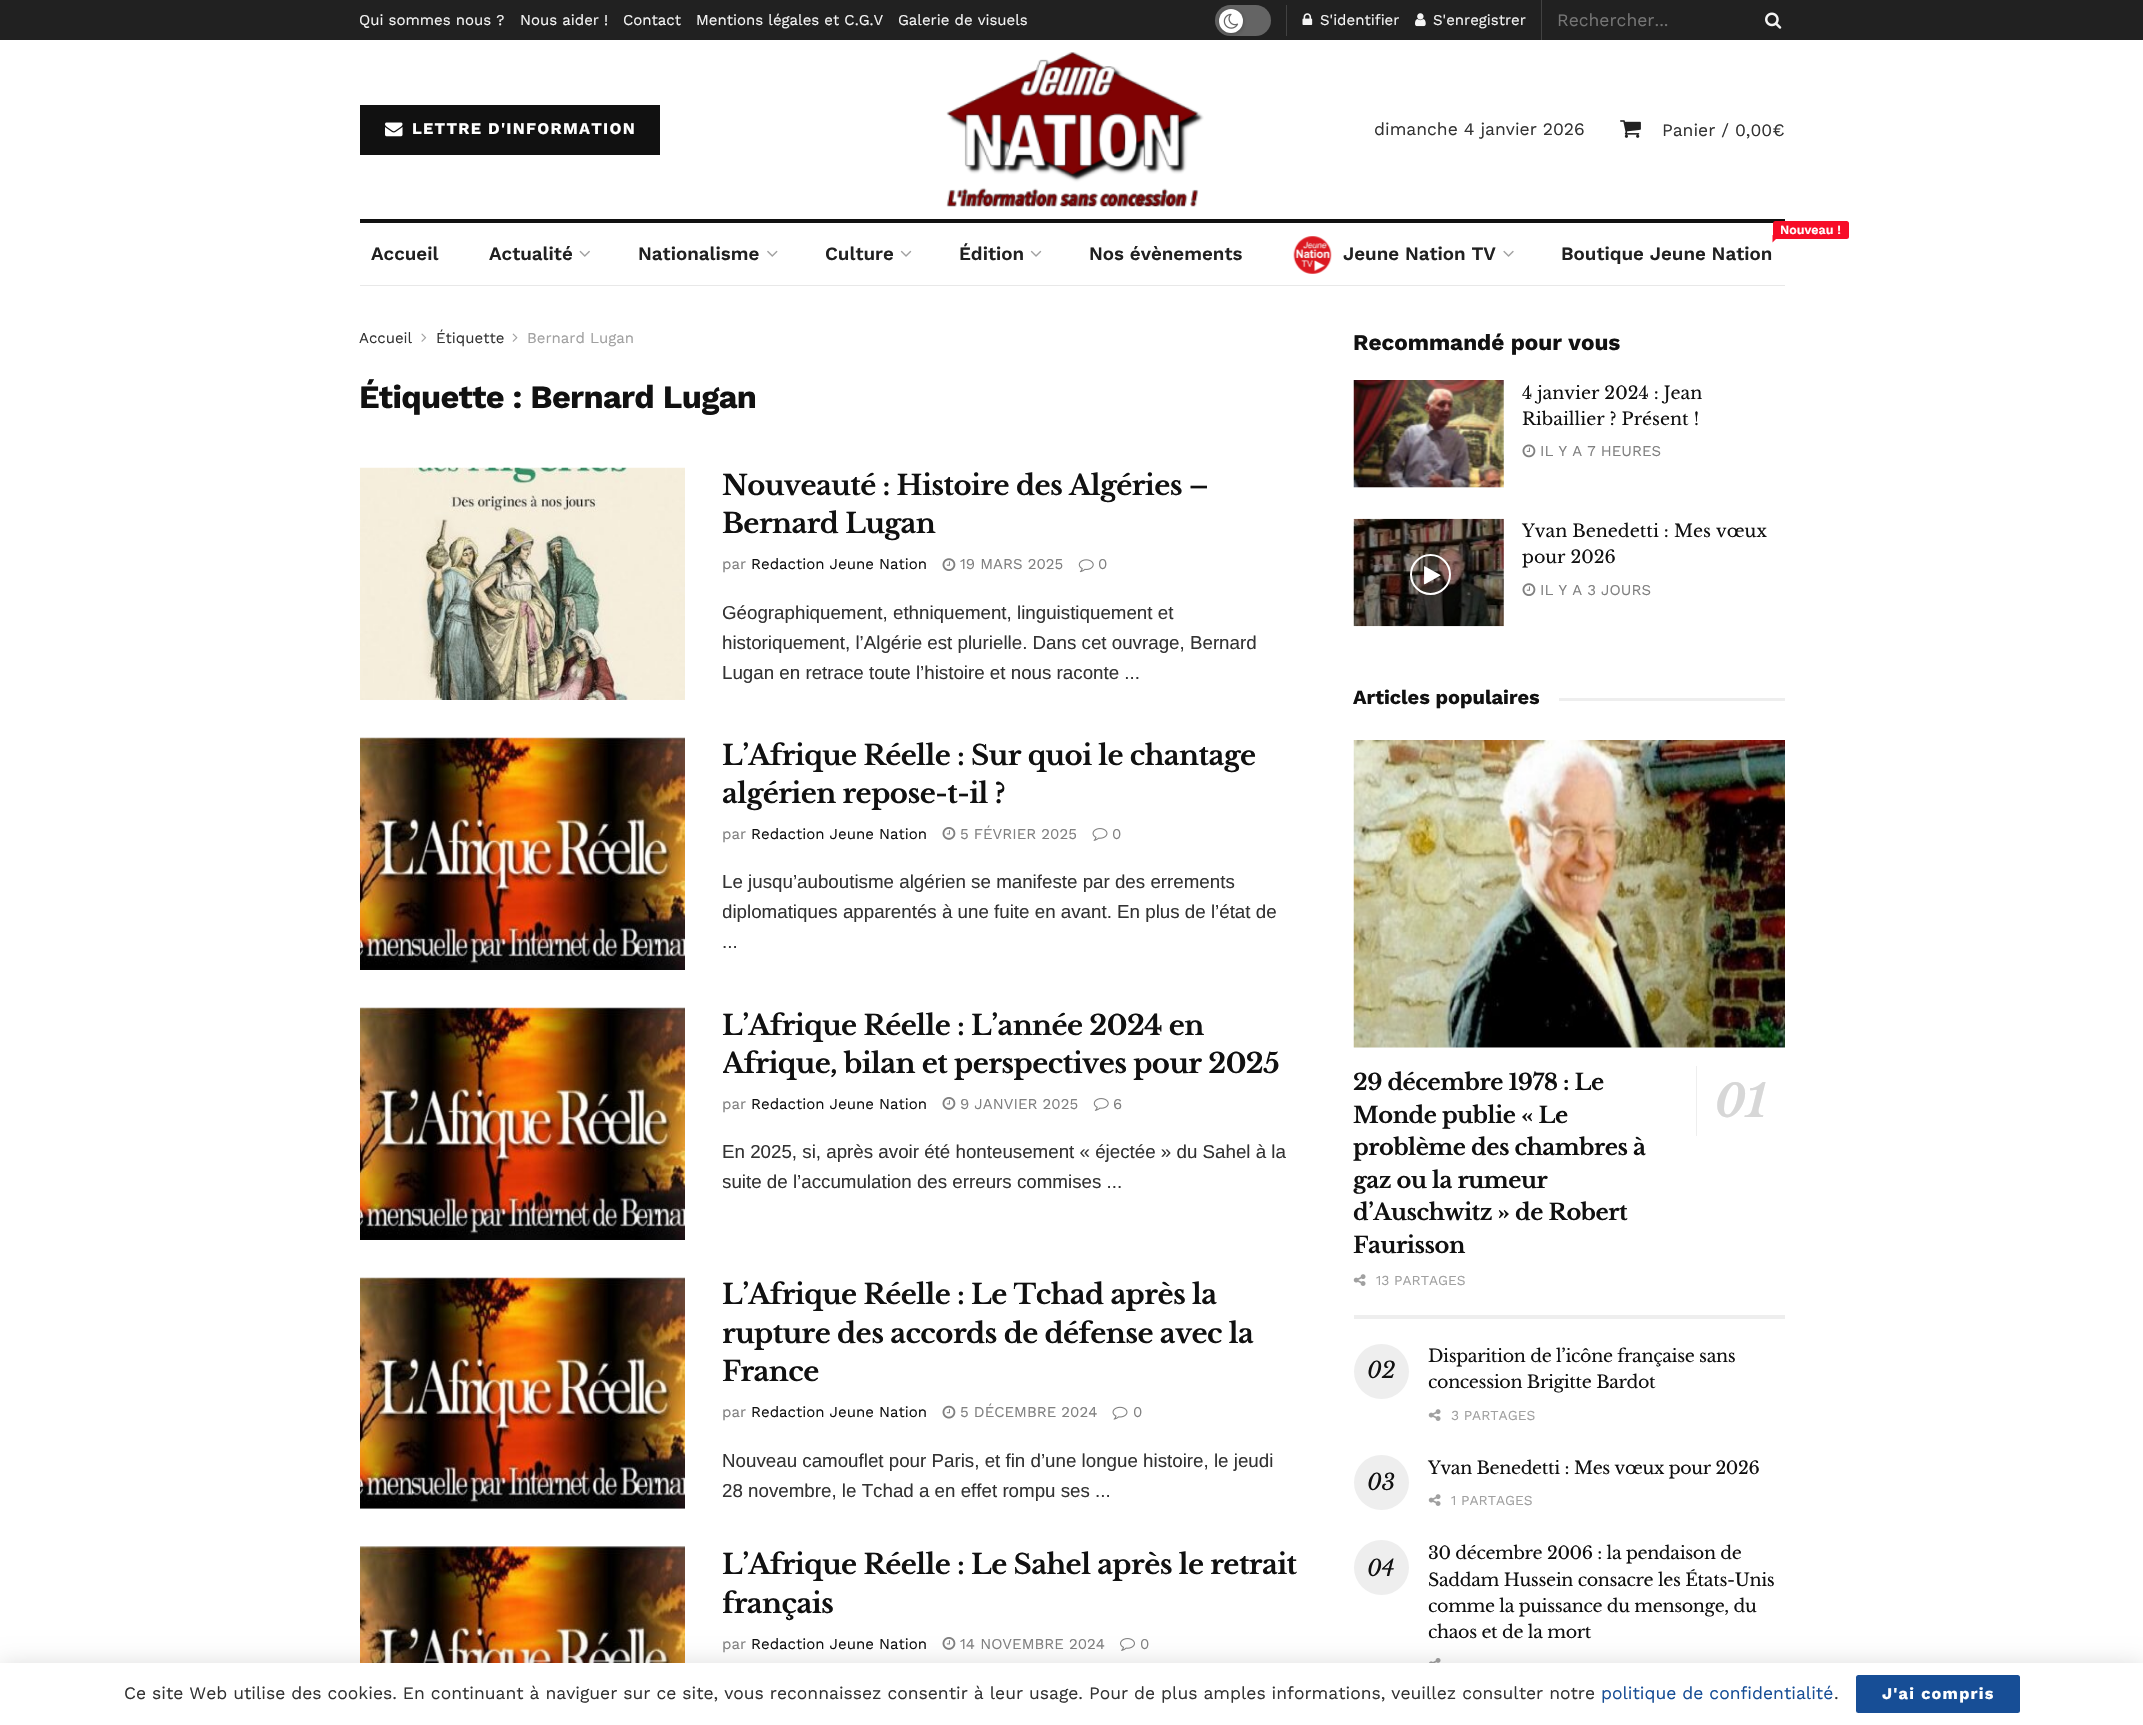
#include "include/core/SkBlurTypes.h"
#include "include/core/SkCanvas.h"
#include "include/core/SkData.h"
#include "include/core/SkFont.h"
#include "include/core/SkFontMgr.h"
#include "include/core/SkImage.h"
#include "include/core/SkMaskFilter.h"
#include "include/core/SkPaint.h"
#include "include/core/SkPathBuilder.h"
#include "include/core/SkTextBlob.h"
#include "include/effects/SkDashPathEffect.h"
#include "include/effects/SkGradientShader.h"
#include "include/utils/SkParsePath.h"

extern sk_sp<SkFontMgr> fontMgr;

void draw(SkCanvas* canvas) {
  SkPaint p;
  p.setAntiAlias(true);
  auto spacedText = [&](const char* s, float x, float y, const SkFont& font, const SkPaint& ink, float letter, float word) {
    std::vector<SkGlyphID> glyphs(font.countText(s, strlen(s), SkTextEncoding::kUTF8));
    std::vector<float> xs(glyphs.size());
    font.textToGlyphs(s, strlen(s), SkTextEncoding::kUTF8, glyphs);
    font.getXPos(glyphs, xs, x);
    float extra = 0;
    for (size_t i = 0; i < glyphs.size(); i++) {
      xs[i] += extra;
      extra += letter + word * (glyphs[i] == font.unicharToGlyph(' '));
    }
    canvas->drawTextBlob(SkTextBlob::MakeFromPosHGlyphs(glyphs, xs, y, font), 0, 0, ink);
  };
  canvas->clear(SK_ColorWHITE);
  p.setColor(SkColorSetRGB(33, 33, 33));
  canvas->drawRect(SkRect::MakeLTRB(0, 0, 2143, 40), p);
  p.setColor(SkColorSetRGB(66, 66, 66));
  canvas->drawRect(SkRect::MakeLTRB(1286, 5, 1287, 36), p);
  p.setColor(SkColorSetRGB(100, 100, 100));
  canvas->drawRoundRect(SkRect::MakeLTRB(1215, 5, 1271, 36), 15.5f, 15.5f, p);
  p.setColor(SkColorSetARGB(77, 0, 0, 0));
  p.setMaskFilter(SkMaskFilter::MakeBlur(kNormal_SkBlurStyle, 2));
  canvas->drawRoundRect(SkRect::MakeLTRB(1219, 10, 1243, 34), 12, 12, p);
  p.setMaskFilter(nullptr);
  p.setColor(SK_ColorWHITE);
  canvas->drawCircle(1231, 21, 12, p);
  canvas->drawImageRect(SkImages::DeferredFromEncodedData(SkData::MakeFromFileName("images/1.png")), SkRect::MakeLTRB(1223, 13, 1239, 29), SkSamplingOptions());
  p.setColor(SkColorSetRGB(66, 66, 66));
  canvas->drawRect(SkRect::MakeLTRB(1541, 0, 1542, 40), p);
  canvas->drawImageRect(SkImages::DeferredFromEncodedData(SkData::MakeFromFileName("images/2.png")), SkRect::MakeLTRB(1302, 13, 1313, 25), SkSamplingOptions());
  canvas->drawImageRect(SkImages::DeferredFromEncodedData(SkData::MakeFromFileName("images/3.png")), SkRect::MakeLTRB(1415, 13, 1426, 27), SkSamplingOptions());
  canvas->drawImageRect(SkImages::DeferredFromEncodedData(SkData::MakeFromFileName("images/4.png")), SkRect::MakeLTRB(1765, 12, 1782, 29), SkSamplingOptions());
  p.setColor(SkColorSetRGB(17, 17, 17));
  canvas->drawRect(SkRect::MakeLTRB(360, 105, 660, 155), p);
  canvas->drawImageRect(SkImages::DeferredFromEncodedData(SkData::MakeFromFileName("images/5.png")), SkRect::MakeLTRB(385, 122, 403, 137), SkSamplingOptions());
  canvas->drawImageRect(SkImages::DeferredFromEncodedData(SkData::MakeFromFileName("images/6.png")), SkRect::MakeLTRB(946, 52, 1204, 207), SkSamplingOptions());
  canvas->drawImageRect(SkImages::DeferredFromEncodedData(SkData::MakeFromFileName("images/7.png")), SkRect::MakeLTRB(1620, 120, 1641, 138), SkSamplingOptions());
  canvas->drawRect(SkRect::MakeLTRB(360, 219, 1785, 223), p);
  p.setColor(SkColorSetRGB(232, 232, 232));
  canvas->drawRect(SkRect::MakeLTRB(360, 285, 1785, 286), p);
  canvas->drawImageRect(SkImages::DeferredFromEncodedData(SkData::MakeFromFileName("images/8.png")), SkRect::MakeLTRB(579, 250, 590, 257), SkSamplingOptions());
  canvas->drawImageRect(SkImages::DeferredFromEncodedData(SkData::MakeFromFileName("images/9.png")), SkRect::MakeLTRB(767, 250, 778, 257), SkSamplingOptions());
  canvas->drawImageRect(SkImages::DeferredFromEncodedData(SkData::MakeFromFileName("images/10.png")), SkRect::MakeLTRB(900, 250, 912, 257), SkSamplingOptions());
  canvas->drawImageRect(SkImages::DeferredFromEncodedData(SkData::MakeFromFileName("images/10.png")), SkRect::MakeLTRB(1030, 250, 1042, 257), SkSamplingOptions());
  canvas->drawImageRect(SkImages::DeferredFromEncodedData(SkData::MakeFromFileName("images/11.png")), SkRect::MakeLTRB(1293, 236, 1332, 274), SkSamplingOptions());
  canvas->drawImageRect(SkImages::DeferredFromEncodedData(SkData::MakeFromFileName("images/12.png")), SkRect::MakeLTRB(1503, 250, 1514, 257), SkSamplingOptions());
  p.setColor(SkColorSetRGB(247, 13, 40));
  canvas->drawRoundRect(SkRect::MakeLTRB(1773, 221, 1849, 239), 2.5f, 2.5f, p);
  canvas->drawPath(SkPathBuilder().moveTo(1772.5f, 235).lineTo(1780, 235).lineTo(1776, 239).close().detach(), p);
  canvas->drawPath(SkPathBuilder().moveTo(1772.5f, 242.5f).lineTo(1772.5f, 235).lineTo(1776, 239).close().detach(), p);
  canvas->drawImageRect(SkImages::DeferredFromEncodedData(SkData::MakeFromFileName("images/13.png")), SkRect::MakeLTRB(421, 333, 427, 342), SkSamplingOptions());
  canvas->drawImageRect(SkImages::DeferredFromEncodedData(SkData::MakeFromFileName("images/14.png")), SkRect::MakeLTRB(512, 333, 518, 342), SkSamplingOptions());
  canvas->drawImageRect(SkImages::DeferredFromEncodedData(SkData::MakeFromFileName("images/15.png")), SkRect::MakeLTRB(360, 467, 685, 700), SkSamplingOptions());
  canvas->drawImageRect(SkImages::DeferredFromEncodedData(SkData::MakeFromFileName("images/16.png")), SkRect::MakeLTRB(942, 558, 956, 571), SkSamplingOptions());
  canvas->drawImageRect(SkImages::DeferredFromEncodedData(SkData::MakeFromFileName("images/17.png")), SkRect::MakeLTRB(1078, 559, 1094, 573), SkSamplingOptions());
  canvas->drawImageRect(SkImages::DeferredFromEncodedData(SkData::MakeFromFileName("images/18.png")), SkRect::MakeLTRB(360, 737, 685, 970), SkSamplingOptions());
  canvas->drawImageRect(SkImages::DeferredFromEncodedData(SkData::MakeFromFileName("images/19.png")), SkRect::MakeLTRB(942, 827, 956, 840), SkSamplingOptions());
  canvas->drawImageRect(SkImages::DeferredFromEncodedData(SkData::MakeFromFileName("images/20.png")), SkRect::MakeLTRB(1092, 828, 1108, 841), SkSamplingOptions());
  canvas->drawImageRect(SkImages::DeferredFromEncodedData(SkData::MakeFromFileName("images/18.png")), SkRect::MakeLTRB(360, 1007, 685, 1240), SkSamplingOptions());
  canvas->drawImageRect(SkImages::DeferredFromEncodedData(SkData::MakeFromFileName("images/19.png")), SkRect::MakeLTRB(942, 1097, 956, 1110), SkSamplingOptions());
  canvas->drawImageRect(SkImages::DeferredFromEncodedData(SkData::MakeFromFileName("images/21.png")), SkRect::MakeLTRB(1093, 1098, 1109, 1111), SkSamplingOptions());
  p.setColor(SkColorSetRGB(247, 247, 247));
  canvas->drawRect(SkRect::MakeLTRB(360, 1508, 685, 1509), p);
  canvas->drawImageRect(SkImages::DeferredFromEncodedData(SkData::MakeFromFileName("images/22.png")), SkRect::MakeLTRB(360, 1277, 685, 1509), SkSamplingOptions());
  canvas->drawImageRect(SkImages::DeferredFromEncodedData(SkData::MakeFromFileName("images/23.png")), SkRect::MakeLTRB(942, 1405, 956, 1419), SkSamplingOptions());
  canvas->drawImageRect(SkImages::DeferredFromEncodedData(SkData::MakeFromFileName("images/24.png")), SkRect::MakeLTRB(1112, 1406, 1128, 1420), SkSamplingOptions());
  canvas->drawRect(SkRect::MakeLTRB(360, 1546, 685, 1547), p);
  canvas->drawImageRect(SkImages::DeferredFromEncodedData(SkData::MakeFromFileName("images/25.png")), SkRect::MakeLTRB(360, 1546, 685, 1663), SkSamplingOptions());
  canvas->drawImageRect(SkImages::DeferredFromEncodedData(SkData::MakeFromFileName("images/19.png")), SkRect::MakeLTRB(942, 1637, 956, 1650), SkSamplingOptions());
  canvas->drawImageRect(SkImages::DeferredFromEncodedData(SkData::MakeFromFileName("images/26.png")), SkRect::MakeLTRB(1120, 1638, 1135, 1651), SkSamplingOptions());
  canvas->drawRect(SkRect::MakeLTRB(1354, 380, 1504, 488), p);
  canvas->drawImageRect(SkImages::DeferredFromEncodedData(SkData::MakeFromFileName("images/27.png")), SkRect::MakeLTRB(1353, 380, 1504, 488), SkSamplingOptions());
  canvas->drawImageRect(SkImages::DeferredFromEncodedData(SkData::MakeFromFileName("images/28.png")), SkRect::MakeLTRB(1522, 444, 1536, 458), SkSamplingOptions());
  canvas->drawImageRect(SkImages::DeferredFromEncodedData(SkData::MakeFromFileName("images/29.png")), SkRect::MakeLTRB(1353, 518, 1504, 627), SkSamplingOptions());
  p.setStyle(SkPaint::kStroke_Style);
  p.setStrokeWidth(2);
  p.setColor(SK_ColorWHITE);
  canvas->drawCircle(1430.5f, 574.5f, 19.5f, p);
  canvas->drawImageRect(SkImages::DeferredFromEncodedData(SkData::MakeFromFileName("images/30.png")), SkRect::MakeLTRB(1424, 566, 1441, 585), SkSamplingOptions());
  canvas->drawImageRect(SkImages::DeferredFromEncodedData(SkData::MakeFromFileName("images/16.png")), SkRect::MakeLTRB(1522, 583, 1536, 596), SkSamplingOptions());
  p.setStyle(SkPaint::kFill_Style);
  p.setColor(SkColorSetRGB(238, 238, 238));
  canvas->drawRect(SkRect::MakeLTRB(1559, 698, 1785, 701), p);
  canvas->drawRect(SkRect::MakeLTRB(1354, 1315, 1785, 1319), p);
  p.setColor(SkColorSetRGB(247, 247, 247));
  canvas->drawRect(SkRect::MakeLTRB(1354, 1047, 1785, 1048), p);
  canvas->drawImageRect(SkImages::DeferredFromEncodedData(SkData::MakeFromFileName("images/31.png")), SkRect::MakeLTRB(1353, 740, 1785, 1048), SkSamplingOptions());
  p.setColor(SkColorSetRGB(238, 238, 238));
  canvas->drawRect(SkRect::MakeLTRB(1696, 1066, 1697, 1136), p);
  canvas->drawImageRect(SkImages::DeferredFromEncodedData(SkData::MakeFromFileName("images/32.png")), SkRect::MakeLTRB(1353, 1274, 1366, 1286), SkSamplingOptions());
  canvas->drawCircle(1381.5f, 1371.5f, 27.5f, p);
  canvas->drawImageRect(SkImages::DeferredFromEncodedData(SkData::MakeFromFileName("images/32.png")), SkRect::MakeLTRB(1428, 1409, 1441, 1421), SkSamplingOptions());
  canvas->drawCircle(1381.5f, 1482.5f, 27.5f, p);
  canvas->drawImageRect(SkImages::DeferredFromEncodedData(SkData::MakeFromFileName("images/32.png")), SkRect::MakeLTRB(1428, 1494, 1441, 1506), SkSamplingOptions());
  canvas->drawCircle(1381.5f, 1567.5f, 27.5f, p);
  canvas->drawImageRect(SkImages::DeferredFromEncodedData(SkData::MakeFromFileName("images/33.png")), SkRect::MakeLTRB(1429, 1658, 1441, 1663), SkSamplingOptions());
  p.setColor(SkColorSetARGB(38, 0, 0, 0));
  p.setMaskFilter(SkMaskFilter::MakeBlur(kNormal_SkBlurStyle, 12.5f));
  canvas->drawRect(SkRect::MakeLTRB(0, 1665, 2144, 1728), p);
  p.setMaskFilter(nullptr);
  p.setColor(SK_ColorWHITE);
  canvas->drawRect(SkRect::MakeLTRB(0, 1663, 2143, 1725), p);
  p.setColor(SkColorSetRGB(23, 78, 150));
  canvas->drawRoundRect(SkRect::MakeLTRB(1856, 1675, 2020, 1713), 2.5f, 2.5f, p);
  SkFont font1(fontMgr->matchFamilyStyle("Work Sans", SkFontStyle::Normal()), 15);
  font1.setSubpixel(true);
  p.setColor(SkColorSetRGB(245, 245, 245));
  canvas->drawString("Qui sommes nous ?", 359, 25, font1, p);
  canvas->drawString("Nous aider !", 520, 25, font1, p);
  canvas->drawString("Contact", 623, 25, font1, p);
  canvas->drawString("Mentions légales et C.G.V", 696, 25, font1, p);
  canvas->drawString("Galerie de visuels", 898, 25, font1, p);
  canvas->drawString("S'identifier", 1320, 25, font1, p);
  canvas->drawString("S'enregistrer", 1433, 25, font1, p);
  SkFont font2(fontMgr->matchFamilyStyle("Work Sans", SkFontStyle::Normal()), 17.5f);
  font2.setSubpixel(true);
  p.setColor(SkColorSetRGB(117, 117, 117));
  canvas->drawString("Rechercher...", 1557, 26, font2, p);
  SkFont font3(fontMgr->matchFamilyStyle("Work Sans", SkFontStyle::Bold()), 16.25f);
  font3.setSubpixel(true);
  p.setColor(SK_ColorWHITE);
  spacedText("LETTRE D'INFORMATION", 412, 134, font3, p, 1.25f, 0);
  p.setColor(SkColorSetRGB(51, 51, 51));
  canvas->drawString("dimanche 4 janvier 2026", 1374, 135, font2, p);
  canvas->drawString("Panier / 0,00€", 1662, 136, font2, p);
  SkFont font4(fontMgr->matchFamilyStyle("Work Sans", SkFontStyle(600, SkFontStyle::kNormal_Width, SkFontStyle::kUpright_Slant)), 18.75f);
  font4.setSubpixel(true);
  p.setColor(SkColorSetRGB(33, 33, 33));
  canvas->drawString("Accueil", 371, 260, font4, p);
  canvas->drawString("Actualité", 489, 260, font4, p);
  canvas->drawString("Nationalisme", 638, 260, font4, p);
  canvas->drawString("Culture", 825, 260, font4, p);
  canvas->drawString("Édition", 959, 260, font4, p);
  canvas->drawString("Nos évènements", 1089, 260, font4, p);
  canvas->drawString("Jeune Nation TV", 1343, 260, font4, p);
  SkFont font5(fontMgr->matchFamilyStyle("Work Sans", SkFontStyle(600, SkFontStyle::kNormal_Width, SkFontStyle::kUpright_Slant)), 12.5f);
  font5.setSubpixel(true);
  p.setColor(SK_ColorWHITE);
  canvas->drawString("Nouveau !", 1780, 234, font5, p);
  p.setColor(SkColorSetRGB(33, 33, 33));
  canvas->drawString("Boutique Jeune Nation", 1561, 260, font4, p);
  p.setColor(SkColorSetRGB(51, 51, 51));
  canvas->drawString("Accueil", 359, 343, font1, p);
  canvas->drawString("Étiquette", 436, 343, font1, p);
  p.setColor(SkColorSetRGB(160, 160, 160));
  canvas->drawString("Bernard Lugan", 527, 343, font1, p);
  SkFont font6(fontMgr->matchFamilyStyle("Work Sans", SkFontStyle::Bold()), 32.5f);
  font6.setSubpixel(true);
  p.setColor(SkColorSetRGB(17, 17, 17));
  spacedText("Étiquette : Bernard Lugan", 359, 408, font6, p, -0.65f, 0);
  SkFont font7(fontMgr->matchFamilyStyle("Libre Baskerville", SkFontStyle::Bold()), 27.5f);
  font7.setSubpixel(true);
  spacedText("Nouveauté : Histoire des Algéries –", 722, 495, font7, p, -0.55f, 0);
  spacedText("Bernard Lugan", 722, 533, font7, p, -0.55f, 0);
  p.setColor(SkColorSetRGB(128, 128, 128));
  canvas->drawString("par", 722, 569, font1, p);
  p.setColor(SkColorSetRGB(17, 17, 17));
  canvas->drawString("Redaction Jeune Nation", 751, 569, font1, p);
  p.setColor(SkColorSetRGB(128, 128, 128));
  canvas->drawString("19 MARS 2025", 960, 569, font1, p);
  canvas->drawString("0", 1098, 569, font1, p);
  canvas->save();
  canvas->clipRect(SkRect::MakeLTRB(723, 468, 1298, 688));
  SkFont font8(fontMgr->matchFamilyStyle("Liberation Sans", SkFontStyle::Normal()), 18.75f);
  font8.setSubpixel(true);
  p.setColor(SkColorSetRGB(51, 51, 51));
  canvas->drawString("Géographiquement, ethniquement, linguistiquement et", 722, 619, font8, p);
  canvas->restore();
  canvas->drawString("historiquement, l’Algérie est plurielle. Dans cet ouvrage, Bernard", 722, 649, font8, p);
  canvas->drawString("Lugan en retrace toute l’histoire et nous raconte ...", 722, 679, font8, p);
  p.setColor(SkColorSetRGB(17, 17, 17));
  spacedText("L’Afrique Réelle : Sur quoi le chantage", 722, 765, font7, p, -0.55f, 0);
  spacedText("algérien repose-t-il ?", 722, 803, font7, p, -0.55f, 0);
  p.setColor(SkColorSetRGB(128, 128, 128));
  canvas->drawString("par", 722, 839, font1, p);
  p.setColor(SkColorSetRGB(17, 17, 17));
  canvas->drawString("Redaction Jeune Nation", 751, 839, font1, p);
  p.setColor(SkColorSetRGB(128, 128, 128));
  canvas->drawString("5 FÉVRIER 2025", 960, 839, font1, p);
  canvas->drawString("0", 1112, 839, font1, p);
  p.setColor(SkColorSetRGB(51, 51, 51));
  canvas->drawString("Le jusqu’auboutisme algérien se manifeste par des errements", 722, 888, font8, p);
  canvas->save();
  canvas->clipRect(SkRect::MakeLTRB(723, 738, 1298, 958));
  canvas->drawString("diplomatiques apparentés à une fuite en avant. En plus de l’état de", 722, 918, font8, p);
  canvas->restore();
  canvas->drawString("...", 722, 948, font8, p);
  p.setColor(SkColorSetRGB(17, 17, 17));
  spacedText("L’Afrique Réelle : L’année 2024 en", 722, 1035, font7, p, -0.55f, 0);
  canvas->save();
  canvas->clipRect(SkRect::MakeLTRB(723, 1008, 1298, 1198));
  spacedText("Afrique, bilan et perspectives pour 2025", 722, 1073, font7, p, -0.55f, 0);
  canvas->restore();
  p.setColor(SkColorSetRGB(128, 128, 128));
  canvas->drawString("par", 722, 1109, font1, p);
  p.setColor(SkColorSetRGB(17, 17, 17));
  canvas->drawString("Redaction Jeune Nation", 751, 1109, font1, p);
  p.setColor(SkColorSetRGB(128, 128, 128));
  canvas->drawString("9 JANVIER 2025", 960, 1109, font1, p);
  canvas->drawString("6", 1113, 1109, font1, p);
  p.setColor(SkColorSetRGB(51, 51, 51));
  canvas->drawString("En 2025, si, après avoir été honteusement « éjectée » du Sahel à la", 722, 1158, font8, p);
  canvas->save();
  canvas->clipRect(SkRect::MakeLTRB(723, 1008, 1298, 1198));
  canvas->drawString("suite de l’accumulation des erreurs commises ...", 722, 1188, font8, p);
  canvas->restore();
  p.setColor(SkColorSetRGB(17, 17, 17));
  spacedText("L’Afrique Réelle : Le Tchad après la", 722, 1304, font7, p, -0.55f, 0);
  canvas->save();
  canvas->clipRect(SkRect::MakeLTRB(723, 1278, 1298, 1505));
  spacedText("rupture des accords de défense avec la", 722, 1343, font7, p, -0.55f, 0);
  canvas->restore();
  spacedText("France", 722, 1381, font7, p, -0.55f, 0);
  p.setColor(SkColorSetRGB(128, 128, 128));
  canvas->drawString("par", 722, 1417, font1, p);
  p.setColor(SkColorSetRGB(17, 17, 17));
  canvas->drawString("Redaction Jeune Nation", 751, 1417, font1, p);
  p.setColor(SkColorSetRGB(128, 128, 128));
  canvas->drawString("5 DÉCEMBRE 2024", 960, 1417, font1, p);
  canvas->drawString("0", 1133, 1417, font1, p);
  p.setColor(SkColorSetRGB(51, 51, 51));
  canvas->drawString("Nouveau camouflet pour Paris, et fin d’une longue histoire, le jeudi", 722, 1467, font8, p);
  canvas->drawString("28 novembre, le Tchad a en effet rompu ses ...", 722, 1497, font8, p);
  p.setColor(SkColorSetRGB(17, 17, 17));
  spacedText("L’Afrique Réelle : Le Sahel après le retrait", 722, 1574, font7, p, -0.55f, 0);
  canvas->save();
  canvas->clipRect(SkRect::MakeLTRB(723, 1546, 1298, 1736));
  spacedText("français", 722, 1613, font7, p, -0.55f, 0);
  canvas->restore();
  p.setColor(SkColorSetRGB(128, 128, 128));
  canvas->drawString("par", 722, 1649, font1, p);
  p.setColor(SkColorSetRGB(17, 17, 17));
  canvas->drawString("Redaction Jeune Nation", 751, 1649, font1, p);
  p.setColor(SkColorSetRGB(128, 128, 128));
  canvas->drawString("14 NOVEMBRE 2024", 960, 1649, font1, p);
  canvas->drawString("0", 1140, 1649, font1, p);
  SkFont font9(fontMgr->matchFamilyStyle("Work Sans", SkFontStyle::Bold()), 22.5f);
  font9.setSubpixel(true);
  p.setColor(SkColorSetRGB(17, 17, 17));
  canvas->drawString("Recommandé pour vous", 1353, 350, font9, p);
  SkFont font10(fontMgr->matchFamilyStyle("Libre Baskerville", SkFontStyle::Normal()), 17.5f);
  font10.setSubpixel(true);
  canvas->drawString("4 janvier 2024 : Jean", 1522, 399, font10, p);
  canvas->drawString("Ribaillier ? Présent !", 1522, 425, font10, p);
  p.setColor(SkColorSetRGB(128, 128, 128));
  canvas->drawString("IL Y A 7 HEURES", 1540, 456, font1, p);
  p.setColor(SkColorSetRGB(17, 17, 17));
  canvas->drawString("Yvan Benedetti : Mes vœux", 1522, 537, font10, p);
  canvas->drawString("pour 2026", 1522, 563, font10, p);
  p.setColor(SkColorSetRGB(128, 128, 128));
  canvas->drawString("IL Y A 3 JOURS", 1540, 595, font1, p);
  SkFont font11(fontMgr->matchFamilyStyle("Work Sans", SkFontStyle::Bold()), 20);
  font11.setSubpixel(true);
  p.setColor(SkColorSetRGB(17, 17, 17));
  canvas->drawString("Articles populaires", 1353, 704, font11, p);
  SkFont font12(fontMgr->matchFamilyStyle("Libre Baskerville", SkFontStyle::Bold()), 22.5f);
  font12.setSubpixel(true);
  spacedText("29 décembre 1978 : Le", 1353, 1090, font12, p, -0.45f, 0);
  SkFont font13(fontMgr->matchFamilyStyle("Libre Baskerville", SkFontStyle::BoldItalic()), 45);
  font13.setSubpixel(true);
  p.setColor(SkColorSetRGB(215, 215, 215));
  spacedText("01", 1715, 1117, font13, p, -0.45f, 0);
  p.setColor(SkColorSetRGB(17, 17, 17));
  spacedText("Monde publie « Le", 1353, 1123, font12, p, -0.45f, 0);
  spacedText("problème des chambres à", 1353, 1155, font12, p, -0.45f, 0);
  spacedText("gaz ou la rumeur", 1353, 1188, font12, p, -0.45f, 0);
  spacedText("d’Auschwitz » de Robert", 1353, 1220, font12, p, -0.45f, 0);
  spacedText("Faurisson", 1353, 1253, font12, p, -0.45f, 0);
  SkFont font14(fontMgr->matchFamilyStyle("Work Sans", SkFontStyle::Normal()), 13.75f);
  font14.setSubpixel(true);
  p.setColor(SkColorSetRGB(160, 160, 160));
  canvas->drawString("13 PARTAGES", 1376, 1285, font14, p);
  p.setColor(SkColorSetRGB(17, 17, 17));
  spacedText("Disparition de l’icône française sans", 1428, 1362, font10, p, -0.35f, 0);
  SkFont font15(fontMgr->matchFamilyStyle("Libre Baskerville", SkFontStyle::Italic()), 22.5f);
  font15.setSubpixel(true);
  spacedText("02", 1367, 1378, font15, p, -0.35f, 0);
  spacedText("concession Brigitte Bardot", 1428, 1388, font10, p, -0.35f, 0);
  p.setColor(SkColorSetRGB(160, 160, 160));
  canvas->drawString("3 PARTAGES", 1451, 1420, font14, p);
  p.setColor(SkColorSetRGB(17, 17, 17));
  spacedText("Yvan Benedetti : Mes vœux pour 2026", 1428, 1474, font10, p, -0.35f, 0);
  spacedText("03", 1367, 1490, font15, p, -0.35f, 0);
  p.setColor(SkColorSetRGB(160, 160, 160));
  canvas->drawString("1 PARTAGES", 1451, 1505, font14, p);
  p.setColor(SkColorSetRGB(17, 17, 17));
  spacedText("30 décembre 2006 : la pendaison de", 1428, 1559, font10, p, -0.35f, 0);
  spacedText("04", 1367, 1576, font15, p, -0.35f, 0);
  spacedText("Saddam Hussein consacre les États-Unis", 1428, 1586, font10, p, -0.35f, 0);
  spacedText("comme la puissance du mensonge, du", 1428, 1612, font10, p, -0.35f, 0);
  spacedText("chaos et de la mort", 1428, 1638, font10, p, -0.35f, 0);
  p.setColor(SkColorSetRGB(51, 51, 51));
  canvas->drawString("Ce site Web utilise des cookies. En continuant à naviguer sur ce site, vous reconnaissez consentir à leur usage. Pour de plus amples informations, veuillez consulter notre", 124, 1699, font2, p);
  p.setColor(SkColorSetRGB(23, 78, 150));
  canvas->drawString("politique de confidentialité", 1601, 1699, font2, p);
  p.setColor(SkColorSetRGB(51, 51, 51));
  canvas->drawString(".", 1834, 1699, font2, p);
  p.setColor(SK_ColorWHITE);
  spacedText("J'ai compris", 1882, 1699, font3, p, 1.25f, 0);
}
